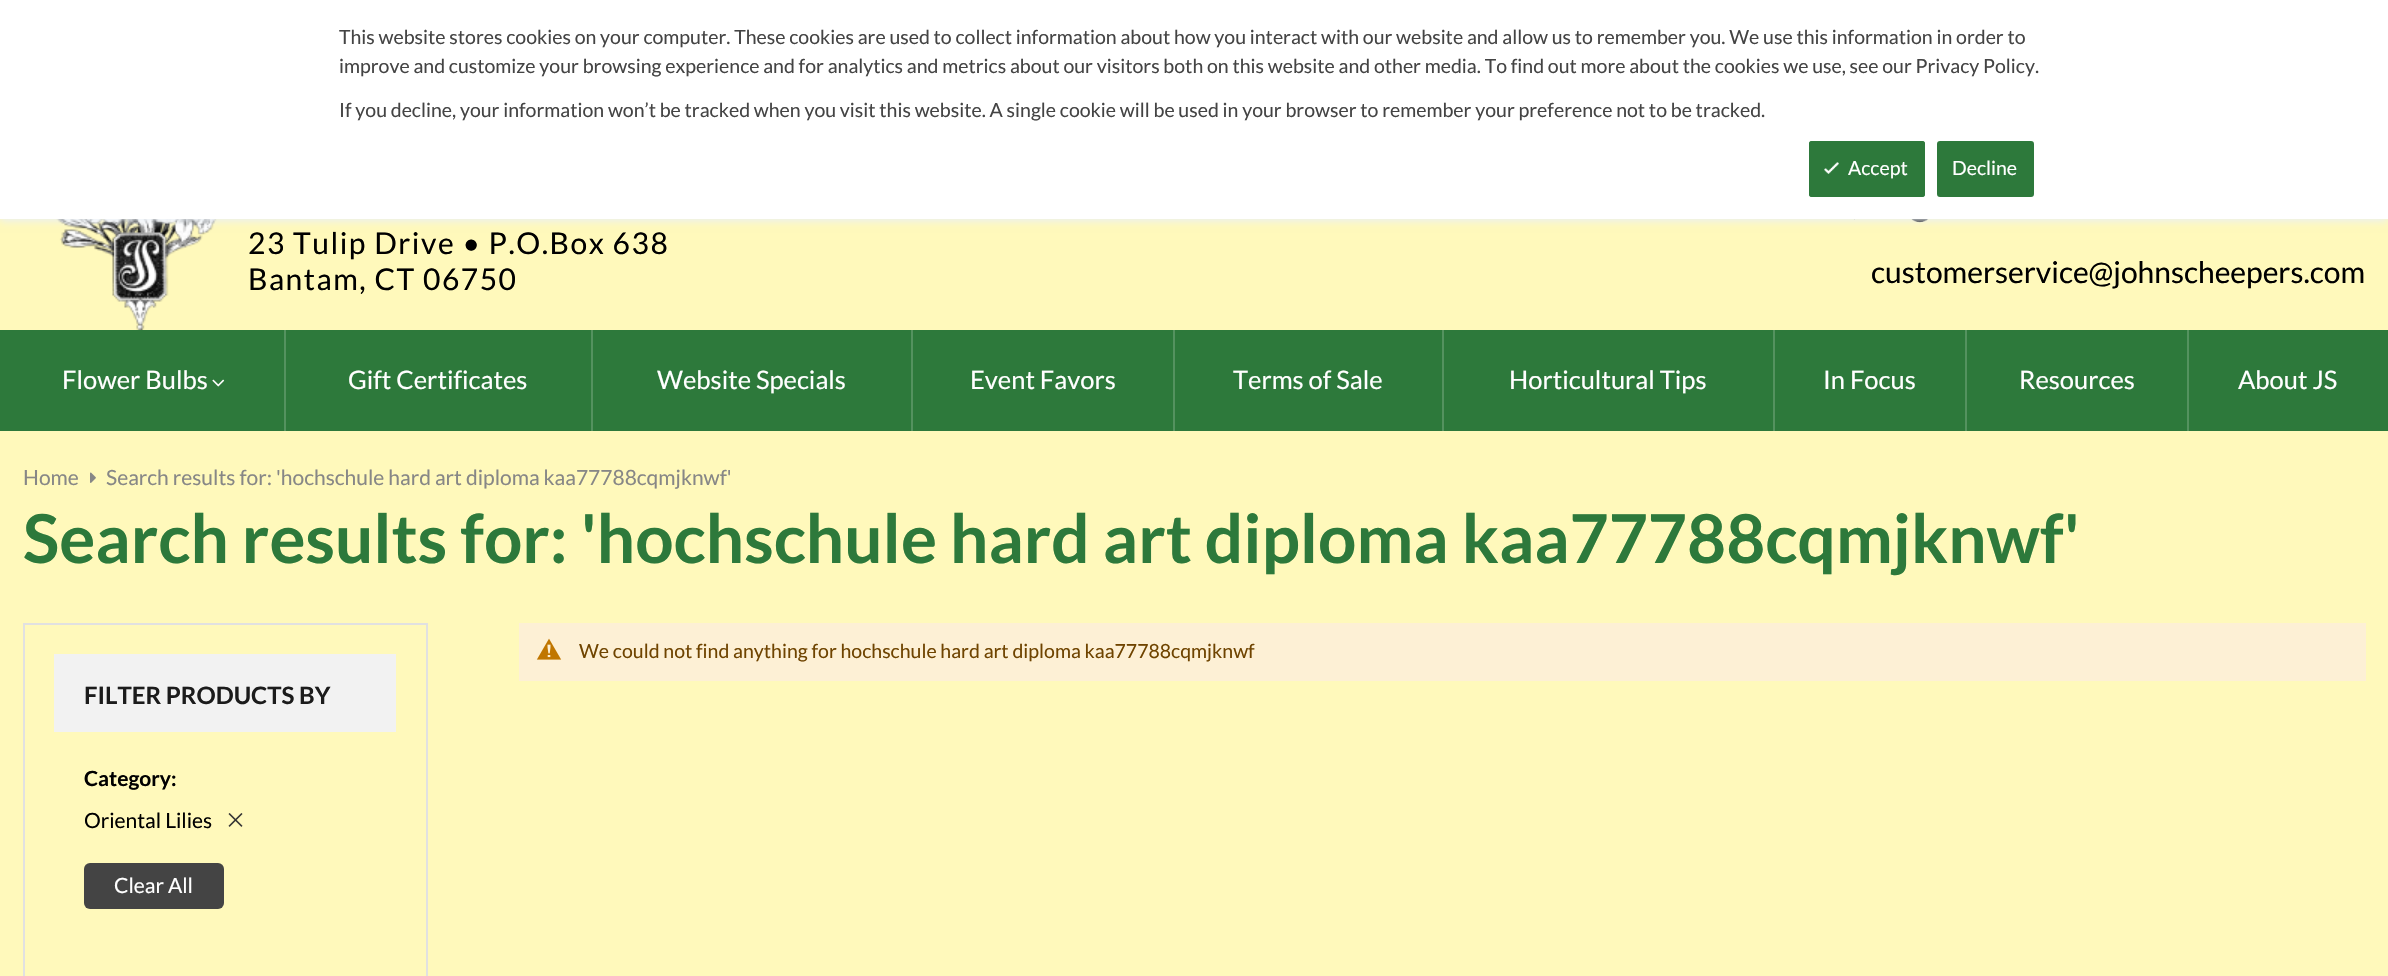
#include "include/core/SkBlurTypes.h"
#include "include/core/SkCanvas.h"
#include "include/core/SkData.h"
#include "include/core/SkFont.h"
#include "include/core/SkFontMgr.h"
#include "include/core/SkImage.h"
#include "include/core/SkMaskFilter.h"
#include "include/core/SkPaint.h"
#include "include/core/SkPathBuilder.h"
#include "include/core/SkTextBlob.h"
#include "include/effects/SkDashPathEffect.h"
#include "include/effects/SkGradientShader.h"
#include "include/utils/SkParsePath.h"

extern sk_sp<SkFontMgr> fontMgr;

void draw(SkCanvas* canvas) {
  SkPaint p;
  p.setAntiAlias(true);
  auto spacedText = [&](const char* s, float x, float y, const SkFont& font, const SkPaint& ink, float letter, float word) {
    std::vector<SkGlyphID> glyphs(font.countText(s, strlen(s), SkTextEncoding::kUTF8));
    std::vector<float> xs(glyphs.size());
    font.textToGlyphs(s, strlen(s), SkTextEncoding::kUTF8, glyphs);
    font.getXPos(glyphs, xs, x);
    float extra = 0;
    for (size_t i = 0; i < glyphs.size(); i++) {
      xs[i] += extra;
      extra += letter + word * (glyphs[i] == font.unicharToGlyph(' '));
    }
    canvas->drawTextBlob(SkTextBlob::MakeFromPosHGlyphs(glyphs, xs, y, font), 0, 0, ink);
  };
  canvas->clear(SkColorSetRGB(255, 249, 187));
  canvas->drawImageRect(SkImages::DeferredFromEncodedData(SkData::MakeFromFileName("images/2.png")), SkRect::MakeLTRB(56, 219, 217, 330), SkSamplingOptions());
  canvas->drawImageRect(SkImages::DeferredFromEncodedData(SkData::MakeFromFileName("images/3.png")), SkRect::MakeLTRB(1854, 219, 1929, 223), SkSamplingOptions());
  p.setColor(SkColorSetRGB(234, 240, 246));
  p.setMaskFilter(SkMaskFilter::MakeBlur(kNormal_SkBlurStyle, 4));
  canvas->drawRect(SkRect::MakeLTRB(0, 2, 2388, 221), p);
  p.setMaskFilter(nullptr);
  p.setColor(SK_ColorWHITE);
  canvas->drawRect(SkRect::MakeLTRB(0, 0, 2388, 219), p);
  p.setColor(SkColorSetRGB(45, 121, 59));
  canvas->drawRoundRect(SkRect::MakeLTRB(1809, 141, 1925, 197), 3, 3, p);
  canvas->drawImageRect(SkImages::DeferredFromEncodedData(SkData::MakeFromFileName("images/1.png")), SkRect::MakeLTRB(1824, 162, 1839, 174), SkSamplingOptions());
  p.setStyle(SkPaint::kStroke_Style);
  p.setStrokeWidth(2);
  canvas->drawRoundRect(SkRect::MakeLTRB(1810, 142, 1924, 196), 2, 2, p);
  p.setStyle(SkPaint::kFill_Style);
  canvas->drawRoundRect(SkRect::MakeLTRB(1938, 142, 2033, 196), 2, 2, p);
  p.setStyle(SkPaint::kStroke_Style);
  canvas->drawRoundRect(SkRect::MakeLTRB(1938, 142, 2033, 196), 2, 2, p);
  p.setStyle(SkPaint::kFill_Style);
  canvas->drawRect(SkRect::MakeLTRB(0, 330, 2388, 431), p);
  p.setColor(SkColorSetRGB(84, 146, 95));
  canvas->drawRect(SkRect::MakeLTRB(284, 330, 286, 431), p);
  canvas->drawImageRect(SkImages::DeferredFromEncodedData(SkData::MakeFromFileName("images/4.png")), SkRect::MakeLTRB(212, 379, 225, 387), SkSamplingOptions());
  canvas->drawRect(SkRect::MakeLTRB(591, 330, 593, 431), p);
  canvas->drawRect(SkRect::MakeLTRB(911, 330, 913, 431), p);
  canvas->drawRect(SkRect::MakeLTRB(1173, 330, 1175, 431), p);
  canvas->drawRect(SkRect::MakeLTRB(1442, 330, 1444, 431), p);
  canvas->drawRect(SkRect::MakeLTRB(1773, 330, 1775, 431), p);
  canvas->drawRect(SkRect::MakeLTRB(1965, 330, 1967, 431), p);
  canvas->drawRect(SkRect::MakeLTRB(2187, 330, 2189, 431), p);
  canvas->drawImageRect(SkImages::DeferredFromEncodedData(SkData::MakeFromFileName("images/5.png")), SkRect::MakeLTRB(90, 472, 96, 483), SkSamplingOptions());
  p.setColor(SkColorSetRGB(253, 240, 213));
  canvas->drawRect(SkRect::MakeLTRB(519, 623, 2366, 681), p);
  canvas->drawImageRect(SkImages::DeferredFromEncodedData(SkData::MakeFromFileName("images/6.png")), SkRect::MakeLTRB(536, 638, 562, 660), SkSamplingOptions());
  p.setStyle(SkPaint::kStroke_Style);
  p.setColor(SkColorSetRGB(225, 225, 225));
  canvas->drawRect(SkRect::MakeLTRB(24, 624, 427, 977), p);
  p.setStyle(SkPaint::kFill_Style);
  p.setColor(SkColorSetRGB(242, 242, 242));
  canvas->drawRect(SkRect::MakeLTRB(54, 654, 396, 732), p);
  canvas->drawImageRect(SkImages::DeferredFromEncodedData(SkData::MakeFromFileName("images/7.png")), SkRect::MakeLTRB(228, 813, 243, 827), SkSamplingOptions());
  p.setColor(SkColorSetRGB(68, 68, 68));
  canvas->drawRoundRect(SkRect::MakeLTRB(84, 863, 224, 909), 6, 6, p);
  SkFont font1(fontMgr->matchFamilyStyle("Lato", SkFontStyle::Normal()), 19.5f);
  font1.setSubpixel(true);
  canvas->drawString("This website stores cookies on your computer. These cookies are used to collect information about how you interact with our website and allow us to remember you. We use this information in order to", 339, 44, font1, p);
  canvas->drawString("improve and customize your browsing experience and for analytics and metrics about our visitors both on this website and other media. To find out more about the cookies we use, see our Privacy Policy.", 339, 73, font1, p);
  canvas->drawString("If you decline, your information won’t be tracked when you visit this website. A single cookie will be used in your browser to remember your preference not to be tracked.", 339, 117, font1, p);
  p.setColor(SK_ColorWHITE);
  canvas->drawString("Accept", 1848, 175, font1, p);
  canvas->drawString("Decline", 1952, 175, font1, p);
  SkFont font2(fontMgr->matchFamilyStyle("Lato", SkFontStyle::Normal()), 30);
  font2.setSubpixel(true);
  p.setColor(SK_ColorBLACK);
  spacedText("23 Tulip Drive • P.O.Box 638", 248, 254, font2, p, 1.5f, 0);
  spacedText("Bantam, CT 06750", 248, 290, font2, p, 1.5f, 0);
  canvas->drawString("customerservice@johnscheepers.com", 1871, 283, font2, p);
  SkFont font3(fontMgr->matchFamilyStyle("Lato", SkFontStyle::Normal()), 25.5f);
  font3.setSubpixel(true);
  p.setColor(SK_ColorWHITE);
  canvas->drawString("Flower Bulbs", 62, 389, font3, p);
  canvas->drawString("Gift Certificates", 348, 389, font3, p);
  canvas->drawString("Website Specials", 657, 389, font3, p);
  canvas->drawString("Event Favors", 970, 389, font3, p);
  canvas->drawString("Terms of Sale", 1233, 389, font3, p);
  canvas->drawString("Horticultural Tips", 1509, 389, font3, p);
  canvas->drawString("In Focus", 1823, 389, font3, p);
  canvas->drawString("Resources", 2019, 389, font3, p);
  canvas->drawString("About JS", 2238, 389, font3, p);
  SkFont font4(fontMgr->matchFamilyStyle("Lato", SkFontStyle::Normal()), 21);
  font4.setSubpixel(true);
  p.setColor(SkColorSetRGB(135, 135, 134));
  canvas->drawString("Home", 23, 485, font4, p);
  canvas->drawString("Search results for: 'hochschule hard art diploma kaa77788cqmjknwf'", 106, 485, font4, p);
  SkFont font5(fontMgr->matchFamilyStyle("Lato", SkFontStyle::Bold()), 67.5f);
  font5.setSubpixel(true);
  p.setColor(SkColorSetRGB(45, 121, 59));
  canvas->drawString("Search results for: 'hochschule hard art diploma kaa77788cqmjknwf'", 23, 563, font5, p);
  p.setColor(SkColorSetRGB(111, 68, 0));
  canvas->drawString("We could not find anything for hochschule hard art diploma kaa77788cqmjknwf", 579, 658, font1, p);
  SkFont font6(fontMgr->matchFamilyStyle("Lato", SkFontStyle::Bold()), 24);
  font6.setSubpixel(true);
  p.setColor(SkColorSetRGB(28, 28, 28));
  canvas->drawString("FILTER PRODUCTS BY", 84, 704, font6, p);
  SkFont font7(fontMgr->matchFamilyStyle("Lato", SkFontStyle::Bold()), 21);
  font7.setSubpixel(true);
  p.setColor(SK_ColorBLACK);
  canvas->drawString("Category:", 84, 786, font7, p);
  canvas->drawString("Oriental Lilies", 84, 828, font4, p);
  p.setColor(SK_ColorWHITE);
  canvas->drawString("Clear All", 114, 893, font4, p);
}
